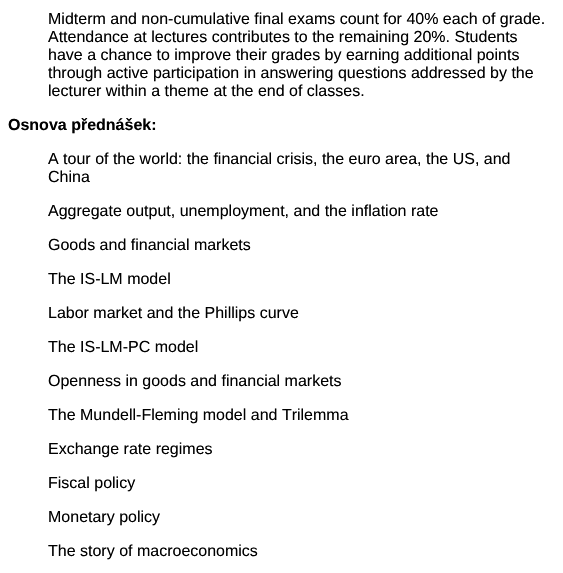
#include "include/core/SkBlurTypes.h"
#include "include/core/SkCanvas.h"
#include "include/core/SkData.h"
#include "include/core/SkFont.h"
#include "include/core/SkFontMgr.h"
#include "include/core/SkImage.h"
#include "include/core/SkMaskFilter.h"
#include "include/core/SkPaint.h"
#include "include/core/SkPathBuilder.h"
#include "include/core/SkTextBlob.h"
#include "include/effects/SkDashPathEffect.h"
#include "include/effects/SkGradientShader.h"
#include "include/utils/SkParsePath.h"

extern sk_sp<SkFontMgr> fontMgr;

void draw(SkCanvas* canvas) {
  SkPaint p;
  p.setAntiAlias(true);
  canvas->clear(SK_ColorWHITE);
  SkFont font1(fontMgr->matchFamilyStyle("Liberation Sans", SkFontStyle::Normal()), 16);
  font1.setSubpixel(true);
  p.setColor(SK_ColorBLACK);
  canvas->drawString("Midterm and non-cumulative final exams count for 40% each of grade.", 48, 24, font1, p);
  canvas->drawString("Attendance at lectures contributes to the remaining 20%. Students", 48, 42, font1, p);
  canvas->drawString("have a chance to improve their grades by earning additional points", 48, 60, font1, p);
  canvas->drawString("through active participation in answering questions addressed by the", 48, 78, font1, p);
  canvas->drawString("lecturer within a theme at the end of classes.", 48, 96, font1, p);
  SkFont font2(fontMgr->matchFamilyStyle("Liberation Sans", SkFontStyle::Bold()), 16);
  font2.setSubpixel(true);
  canvas->drawString("Osnova přednášek:", 8, 130, font2, p);
  canvas->drawString("A tour of the world: the financial crisis, the euro area, the US, and", 48, 164, font1, p);
  canvas->drawString("China", 48, 182, font1, p);
  canvas->drawString("Aggregate output, unemployment, and the inflation rate", 48, 216, font1, p);
  canvas->drawString("Goods and financial markets", 48, 250, font1, p);
  canvas->drawString("The IS-LM model", 48, 284, font1, p);
  canvas->drawString("Labor market and the Phillips curve", 48, 318, font1, p);
  canvas->drawString("The IS-LM-PC model", 48, 352, font1, p);
  canvas->drawString("Openness in goods and financial markets", 48, 386, font1, p);
  canvas->drawString("The Mundell-Fleming model and Trilemma", 48, 420, font1, p);
  canvas->drawString("Exchange rate regimes", 48, 454, font1, p);
  canvas->drawString("Fiscal policy", 48, 488, font1, p);
  canvas->drawString("Monetary policy", 48, 522, font1, p);
  canvas->drawString("The story of macroeconomics", 48, 556, font1, p);
}
